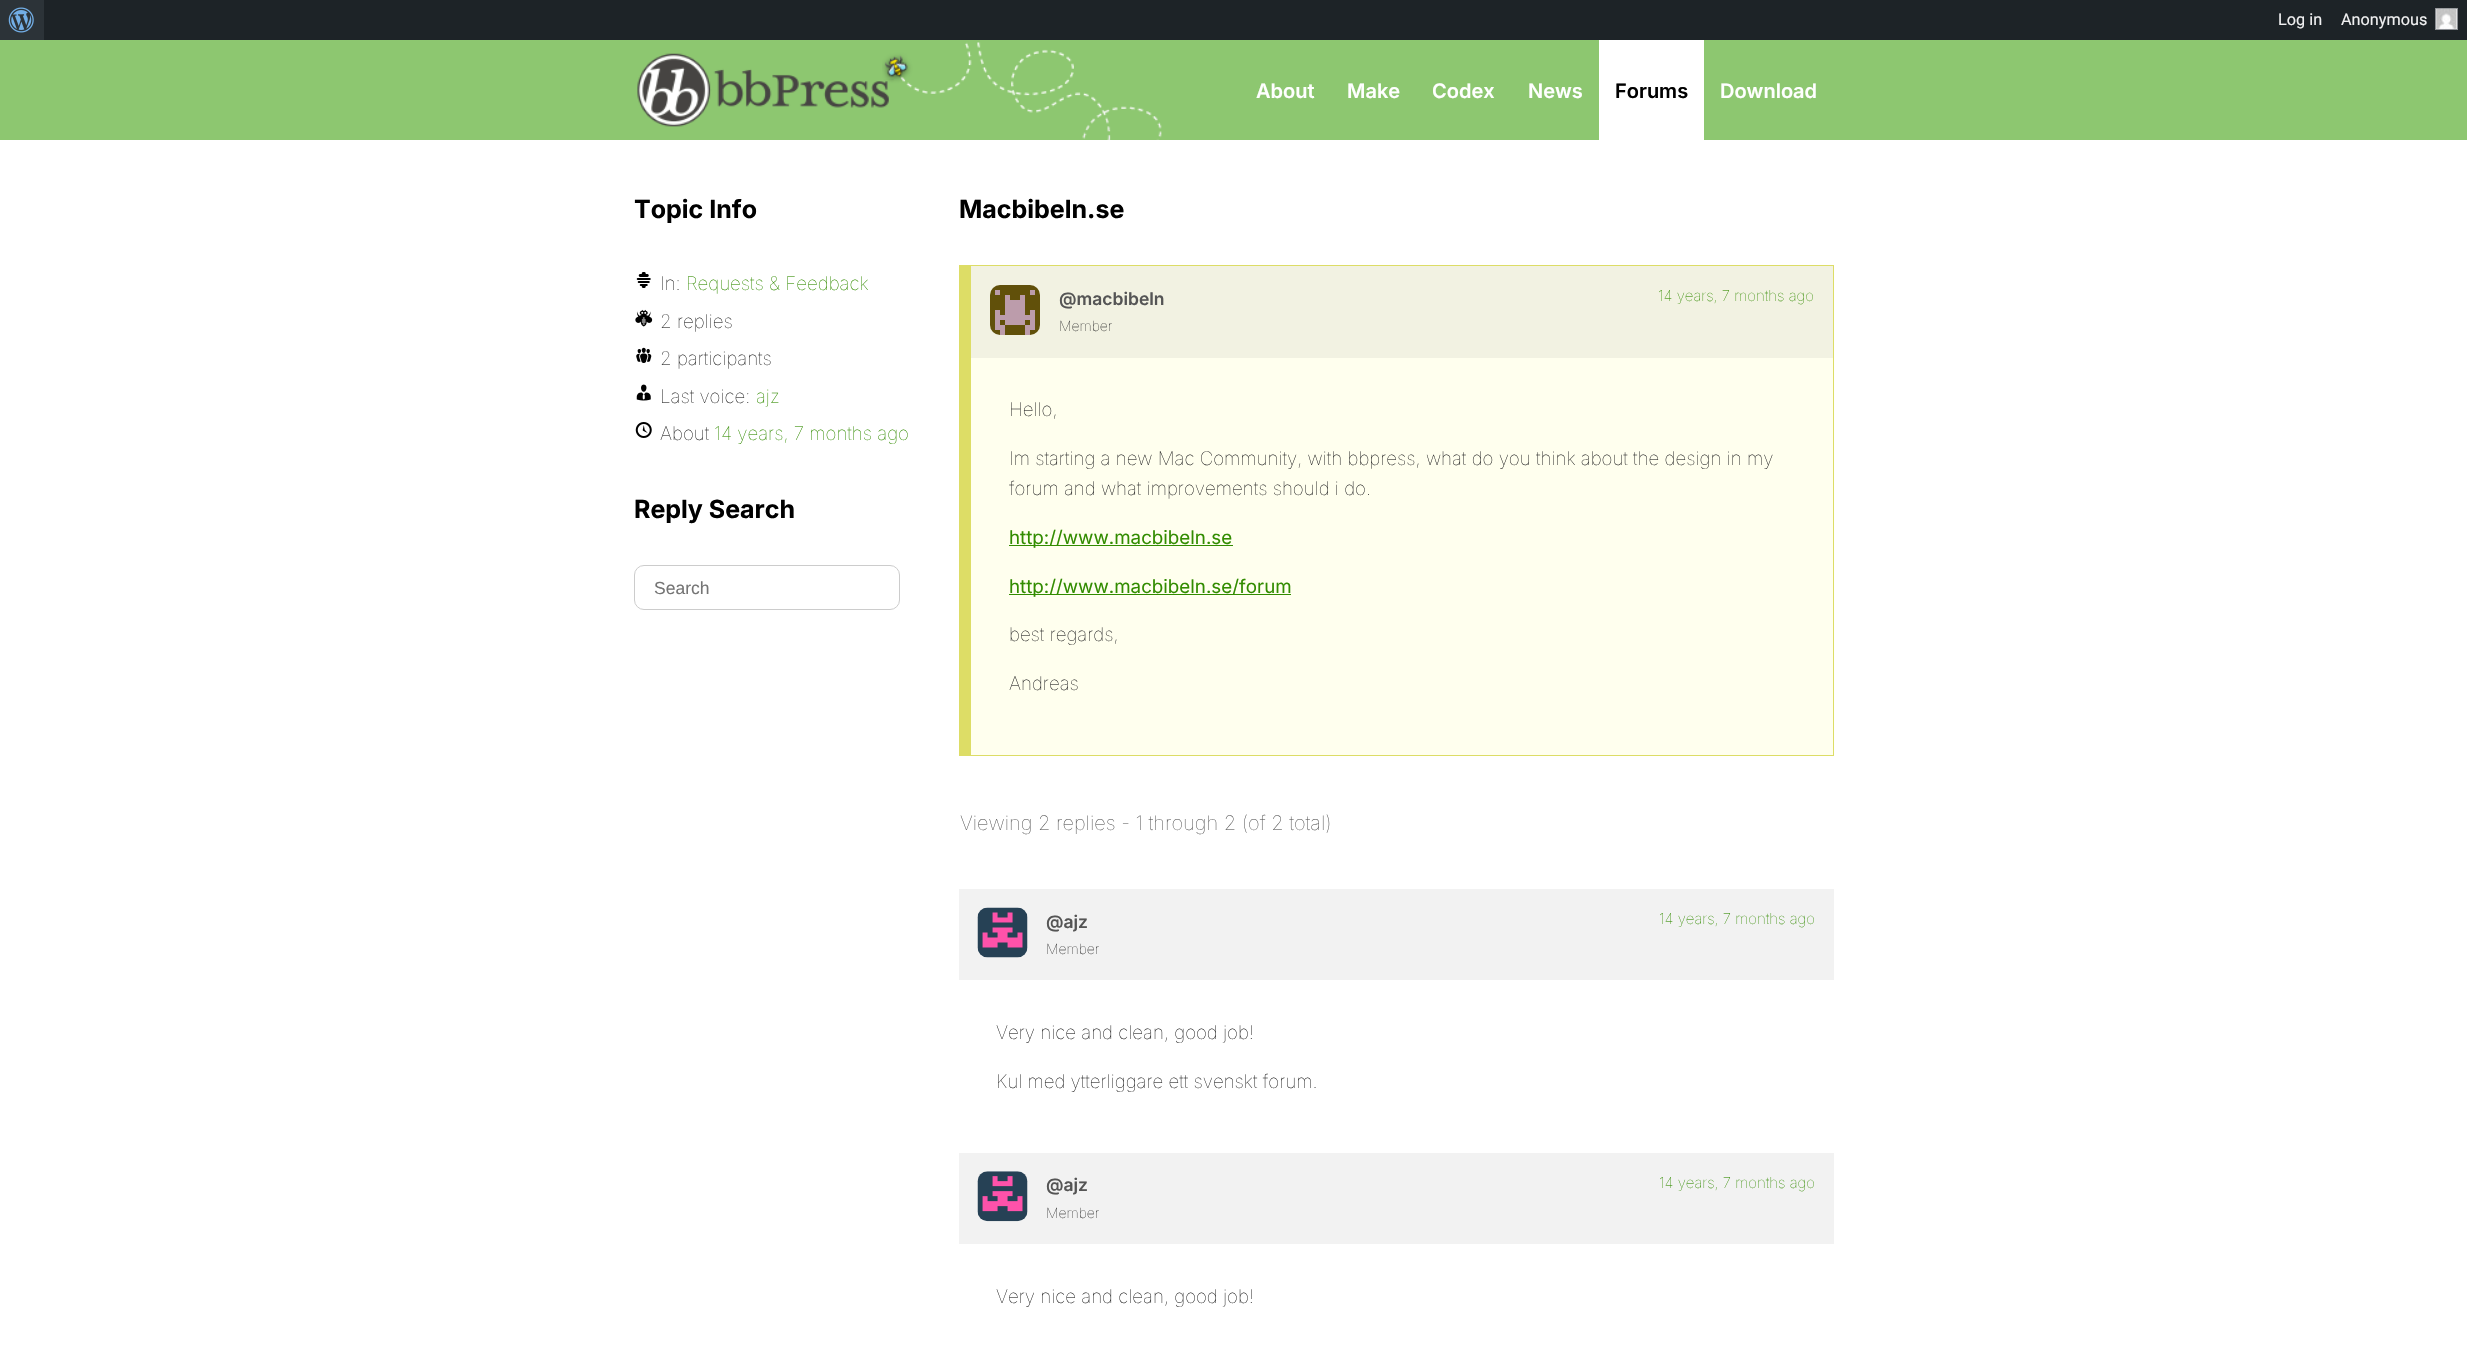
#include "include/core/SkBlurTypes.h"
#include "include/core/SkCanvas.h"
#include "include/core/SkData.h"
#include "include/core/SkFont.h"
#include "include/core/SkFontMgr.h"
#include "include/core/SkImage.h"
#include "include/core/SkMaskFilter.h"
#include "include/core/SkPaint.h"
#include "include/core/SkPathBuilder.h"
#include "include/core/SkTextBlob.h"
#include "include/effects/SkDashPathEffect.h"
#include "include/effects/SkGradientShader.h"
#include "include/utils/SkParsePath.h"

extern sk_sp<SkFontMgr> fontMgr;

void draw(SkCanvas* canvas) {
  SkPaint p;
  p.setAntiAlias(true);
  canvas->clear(SK_ColorWHITE);
  p.setColor(SkColorSetRGB(29, 35, 39));
  canvas->drawRect(SkRect::MakeLTRB(44, 0, 2467, 40), p);
  p.setColor(SkColorSetRGB(44, 51, 56));
  canvas->drawRect(SkRect::MakeLTRB(0, 0, 44, 40), p);
  canvas->drawImageRect(SkImages::DeferredFromEncodedData(SkData::MakeFromFileName("images/1.png")), SkRect::MakeLTRB(8, 7, 34, 33), SkSamplingOptions());
  p.setColor(SkColorSetRGB(240, 240, 241));
  canvas->drawRect(SkRect::MakeLTRB(2435.5f, 8.5f, 2457.5f, 29.5f), p);
  p.setStyle(SkPaint::kStroke_Style);
  p.setStrokeWidth(1);
  p.setColor(SkColorSetRGB(140, 143, 148));
  canvas->drawRect(SkRect::MakeLTRB(2435.5f, 8.5f, 2457.5f, 29.5f), p);
  canvas->drawImageRect(SkImages::DeferredFromEncodedData(SkData::MakeFromFileName("images/2.png")), SkRect::MakeLTRB(2436, 8, 2457, 29), SkSamplingOptions());
  p.setStyle(SkPaint::kFill_Style);
  p.setColor(SkColorSetRGB(141, 199, 112));
  canvas->drawRect(SkRect::MakeLTRB(0, 40, 2467, 140), p);
  canvas->drawImageRect(SkImages::DeferredFromEncodedData(SkData::MakeFromFileName("images/3.png")), SkRect::MakeLTRB(882, 42, 1162, 140), SkSamplingOptions());
  canvas->drawImageRect(SkImages::DeferredFromEncodedData(SkData::MakeFromFileName("images/4.png")), SkRect::MakeLTRB(637, 53, 894, 127), SkSamplingOptions());
  p.setColor(SK_ColorWHITE);
  canvas->drawRect(SkRect::MakeLTRB(1599, 40, 1704, 140), p);
  canvas->drawImageRect(SkImages::DeferredFromEncodedData(SkData::MakeFromFileName("images/5.png")), SkRect::MakeLTRB(636, 272, 651, 288), SkSamplingOptions());
  canvas->drawImageRect(SkImages::DeferredFromEncodedData(SkData::MakeFromFileName("images/6.png")), SkRect::MakeLTRB(635, 309, 653, 327), SkSamplingOptions());
  canvas->drawImageRect(SkImages::DeferredFromEncodedData(SkData::MakeFromFileName("images/7.png")), SkRect::MakeLTRB(636, 347, 652, 363), SkSamplingOptions());
  canvas->drawImageRect(SkImages::DeferredFromEncodedData(SkData::MakeFromFileName("images/8.png")), SkRect::MakeLTRB(636, 384, 651, 401), SkSamplingOptions());
  canvas->drawImageRect(SkImages::DeferredFromEncodedData(SkData::MakeFromFileName("images/9.png")), SkRect::MakeLTRB(635, 422, 652, 438), SkSamplingOptions());
  p.setStyle(SkPaint::kStroke_Style);
  p.setColor(SkColorSetRGB(204, 204, 204));
  canvas->drawRoundRect(SkRect::MakeLTRB(634.5f, 565.5f, 899.5f, 609.5f), 9.5f, 9.5f, p);
  p.setStyle(SkPaint::kFill_Style);
  p.setColor(SkColorSetRGB(221, 221, 102));
  canvas->drawRect(SkRect::MakeLTRB(971, 265, 1834, 266), p);
  canvas->drawRect(SkRect::MakeLTRB(1833, 265, 1834, 756), p);
  canvas->drawRect(SkRect::MakeLTRB(971, 755, 1834, 756), p);
  canvas->drawRect(SkRect::MakeLTRB(959, 265, 971, 756), p);
  p.setColor(SkColorSetRGB(255, 255, 238));
  canvas->drawRect(SkRect::MakeLTRB(971, 358, 1833, 755), p);
  p.setColor(SkColorSetRGB(242, 242, 226));
  canvas->drawRect(SkRect::MakeLTRB(971, 266, 1833, 358), p);
  canvas->drawImageRect(SkImages::DeferredFromEncodedData(SkData::MakeFromFileName("images/10.png")), SkRect::MakeLTRB(990, 285, 1040, 335), SkSamplingOptions());
  p.setColor(SkColorSetRGB(50, 140, 0));
  canvas->drawRect(SkRect::MakeLTRB(1009, 545, 1233, 546), p);
  canvas->drawRect(SkRect::MakeLTRB(1009, 594, 1291, 595), p);
  p.setColor(SkColorSetRGB(242, 242, 242));
  canvas->drawRect(SkRect::MakeLTRB(959, 889, 1834, 980), p);
  canvas->drawImageRect(SkImages::DeferredFromEncodedData(SkData::MakeFromFileName("images/11.png")), SkRect::MakeLTRB(977, 907, 1028, 958), SkSamplingOptions());
  canvas->drawRect(SkRect::MakeLTRB(959, 1153, 1834, 1244), p);
  canvas->drawImageRect(SkImages::DeferredFromEncodedData(SkData::MakeFromFileName("images/12.png")), SkRect::MakeLTRB(977, 1171, 1028, 1222), SkSamplingOptions());
  SkFont font1(fontMgr->matchFamilyStyle("Roboto", SkFontStyle::Normal()), 16.25f);
  font1.setSubpixel(true);
  p.setColor(SkColorSetRGB(240, 240, 241));
  canvas->drawString("Log in", 2278, 25, font1, p);
  canvas->drawString("Anonymous", 2341, 25, font1, p);
  SkFont font2(fontMgr->matchFamilyStyle("Inter", SkFontStyle(600, SkFontStyle::kNormal_Width, SkFontStyle::kUpright_Slant)), 20);
  font2.setSubpixel(true);
  p.setColor(SK_ColorWHITE);
  canvas->drawString("About", 1256, 98, font2, p);
  canvas->drawString("Make", 1347, 98, font2, p);
  canvas->drawString("Codex", 1432, 98, font2, p);
  canvas->drawString("News", 1528, 98, font2, p);
  p.setColor(SK_ColorBLACK);
  canvas->drawString("Forums", 1615, 98, font2, p);
  p.setColor(SK_ColorWHITE);
  canvas->drawString("Download", 1720, 98, font2, p);
  SkFont font3(fontMgr->matchFamilyStyle("Inter", SkFontStyle::Bold()), 25);
  font3.setSubpixel(true);
  p.setColor(SK_ColorBLACK);
  canvas->drawString("Topic Info", 634, 218, font3, p);
  SkFont font4(fontMgr->matchFamilyStyle("Inter", SkFontStyle(100, SkFontStyle::kNormal_Width, SkFontStyle::kUpright_Slant)), 18.75f);
  font4.setSubpixel(true);
  p.setColor(SkColorSetRGB(34, 34, 34));
  canvas->drawString("In:", 660, 290, font4, p);
  p.setColor(SkColorSetRGB(50, 140, 0));
  canvas->drawString("Requests & Feedback", 686, 290, font4, p);
  p.setColor(SkColorSetRGB(34, 34, 34));
  canvas->drawString("2 replies", 660, 328, font4, p);
  canvas->drawString("2 participants", 660, 365, font4, p);
  canvas->drawString("Last voice:", 660, 403, font4, p);
  p.setColor(SkColorSetRGB(50, 140, 0));
  canvas->drawString("ajz", 756, 403, font4, p);
  p.setColor(SkColorSetRGB(34, 34, 34));
  canvas->drawString("About", 660, 440, font4, p);
  p.setColor(SkColorSetRGB(50, 140, 0));
  canvas->drawString("14 years, 7 months ago", 714, 440, font4, p);
  p.setColor(SK_ColorBLACK);
  canvas->drawString("Reply Search", 634, 518, font3, p);
  SkFont font5(fontMgr->matchFamilyStyle("Liberation Sans", SkFontStyle::Normal()), 17.5f);
  font5.setSubpixel(true);
  p.setColor(SkColorSetRGB(117, 117, 117));
  canvas->drawString("Search", 654, 594, font5, p);
  p.setColor(SK_ColorBLACK);
  canvas->drawString("Macbibeln.se", 959, 218, font3, p);
  SkFont font6(fontMgr->matchFamilyStyle("Inter", SkFontStyle(600, SkFontStyle::kNormal_Width, SkFontStyle::kUpright_Slant)), 17.5f);
  font6.setSubpixel(true);
  p.setColor(SkColorSetRGB(85, 85, 85));
  canvas->drawString("@macbibeln", 1059, 305, font6, p);
  SkFont font7(fontMgr->matchFamilyStyle("Inter", SkFontStyle(100, SkFontStyle::kNormal_Width, SkFontStyle::kUpright_Slant)), 14);
  font7.setSubpixel(true);
  p.setColor(SkColorSetRGB(34, 34, 34));
  canvas->drawString("Member", 1059, 331, font7, p);
  SkFont font8(fontMgr->matchFamilyStyle("Inter", SkFontStyle(100, SkFontStyle::kNormal_Width, SkFontStyle::kUpright_Slant)), 15);
  font8.setSubpixel(true);
  p.setColor(SkColorSetRGB(50, 140, 0));
  canvas->drawString("14 years, 7 months ago", 1658, 301, font8, p);
  p.setColor(SkColorSetRGB(34, 34, 34));
  canvas->drawString("Hello,", 1009, 416, font4, p);
  canvas->drawString("Im starting a new Mac Community, with bbpress, what do you think about the design in my", 1009, 465, font4, p);
  canvas->drawString("forum and what improvements should i do.", 1009, 495, font4, p);
  SkFont font9(fontMgr->matchFamilyStyle("Inter", SkFontStyle::Normal()), 18.75f);
  font9.setSubpixel(true);
  p.setColor(SkColorSetRGB(50, 140, 0));
  canvas->drawString("http://www.macbibeln.se", 1009, 544, font9, p);
  canvas->drawString("http://www.macbibeln.se/forum", 1009, 593, font9, p);
  p.setColor(SkColorSetRGB(34, 34, 34));
  canvas->drawString("best regards,", 1009, 641, font4, p);
  canvas->drawString("Andreas", 1009, 690, font4, p);
  SkFont font10(fontMgr->matchFamilyStyle("Inter", SkFontStyle(100, SkFontStyle::kNormal_Width, SkFontStyle::kUpright_Slant)), 20);
  font10.setSubpixel(true);
  p.setColor(SkColorSetRGB(85, 85, 85));
  canvas->drawString("Viewing 2 replies - 1 through 2 (of 2 total)", 960, 830, font10, p);
  canvas->drawString("@ajz", 1046, 928, font6, p);
  p.setColor(SkColorSetRGB(34, 34, 34));
  canvas->drawString("Member", 1046, 954, font7, p);
  p.setColor(SkColorSetRGB(50, 140, 0));
  canvas->drawString("14 years, 7 months ago", 1659, 924, font8, p);
  p.setColor(SkColorSetRGB(34, 34, 34));
  canvas->drawString("Very nice and clean, good job!", 996, 1039, font4, p);
  canvas->drawString("Kul med ytterliggare ett svenskt forum.", 996, 1088, font4, p);
  p.setColor(SkColorSetRGB(85, 85, 85));
  canvas->drawString("@ajz", 1046, 1191, font6, p);
  p.setColor(SkColorSetRGB(34, 34, 34));
  canvas->drawString("Member", 1046, 1218, font7, p);
  p.setColor(SkColorSetRGB(50, 140, 0));
  canvas->drawString("14 years, 7 months ago", 1659, 1188, font8, p);
  p.setColor(SkColorSetRGB(34, 34, 34));
  canvas->drawString("Very nice and clean, good job!", 996, 1303, font4, p);
}
